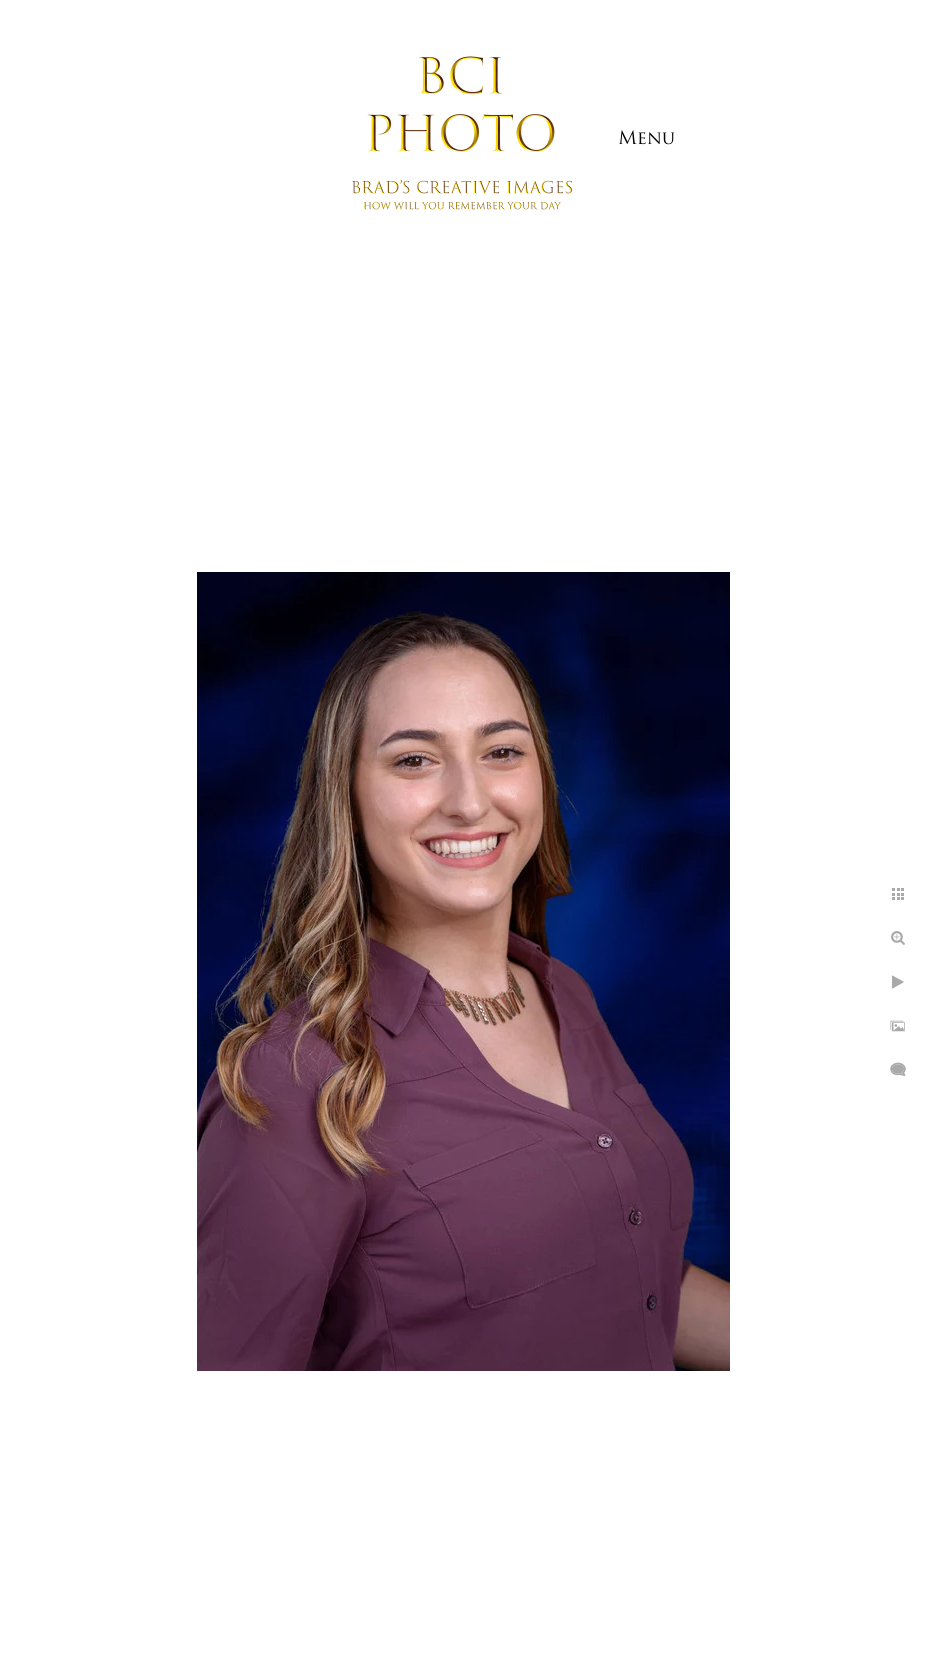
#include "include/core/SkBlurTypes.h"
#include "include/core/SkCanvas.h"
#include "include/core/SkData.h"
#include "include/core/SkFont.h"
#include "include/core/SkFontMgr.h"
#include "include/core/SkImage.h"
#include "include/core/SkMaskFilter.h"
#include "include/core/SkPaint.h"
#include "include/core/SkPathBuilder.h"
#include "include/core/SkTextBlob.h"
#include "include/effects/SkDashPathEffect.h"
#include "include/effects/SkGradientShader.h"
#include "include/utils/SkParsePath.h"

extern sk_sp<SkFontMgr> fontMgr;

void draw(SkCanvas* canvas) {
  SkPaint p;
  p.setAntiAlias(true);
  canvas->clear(SK_ColorWHITE);
  canvas->drawImageRect(SkImages::DeferredFromEncodedData(SkData::MakeFromFileName("images/1.png")), SkRect::MakeLTRB(351, 56, 573, 210), SkSamplingOptions());
  canvas->drawImageRect(SkImages::DeferredFromEncodedData(SkData::MakeFromFileName("images/2.png")), SkRect::MakeLTRB(619, 130, 675, 145), SkSamplingOptions());
  canvas->drawImageRect(SkImages::DeferredFromEncodedData(SkData::MakeFromFileName("images/3.png")), SkRect::MakeLTRB(197, 572, 730, 1371), SkSamplingOptions());
  canvas->drawImageRect(SkImages::DeferredFromEncodedData(SkData::MakeFromFileName("images/4.png")), SkRect::MakeLTRB(892, 888, 904, 900), SkSamplingOptions());
  canvas->drawImageRect(SkImages::DeferredFromEncodedData(SkData::MakeFromFileName("images/5.png")), SkRect::MakeLTRB(891, 931, 905, 945), SkSamplingOptions());
  canvas->drawImageRect(SkImages::DeferredFromEncodedData(SkData::MakeFromFileName("images/6.png")), SkRect::MakeLTRB(892, 975, 904, 989), SkSamplingOptions());
  canvas->drawImageRect(SkImages::DeferredFromEncodedData(SkData::MakeFromFileName("images/7.png")), SkRect::MakeLTRB(890, 1020, 905, 1032), SkSamplingOptions());
  canvas->drawImageRect(SkImages::DeferredFromEncodedData(SkData::MakeFromFileName("images/8.png")), SkRect::MakeLTRB(890, 1062, 906, 1077), SkSamplingOptions());
}
